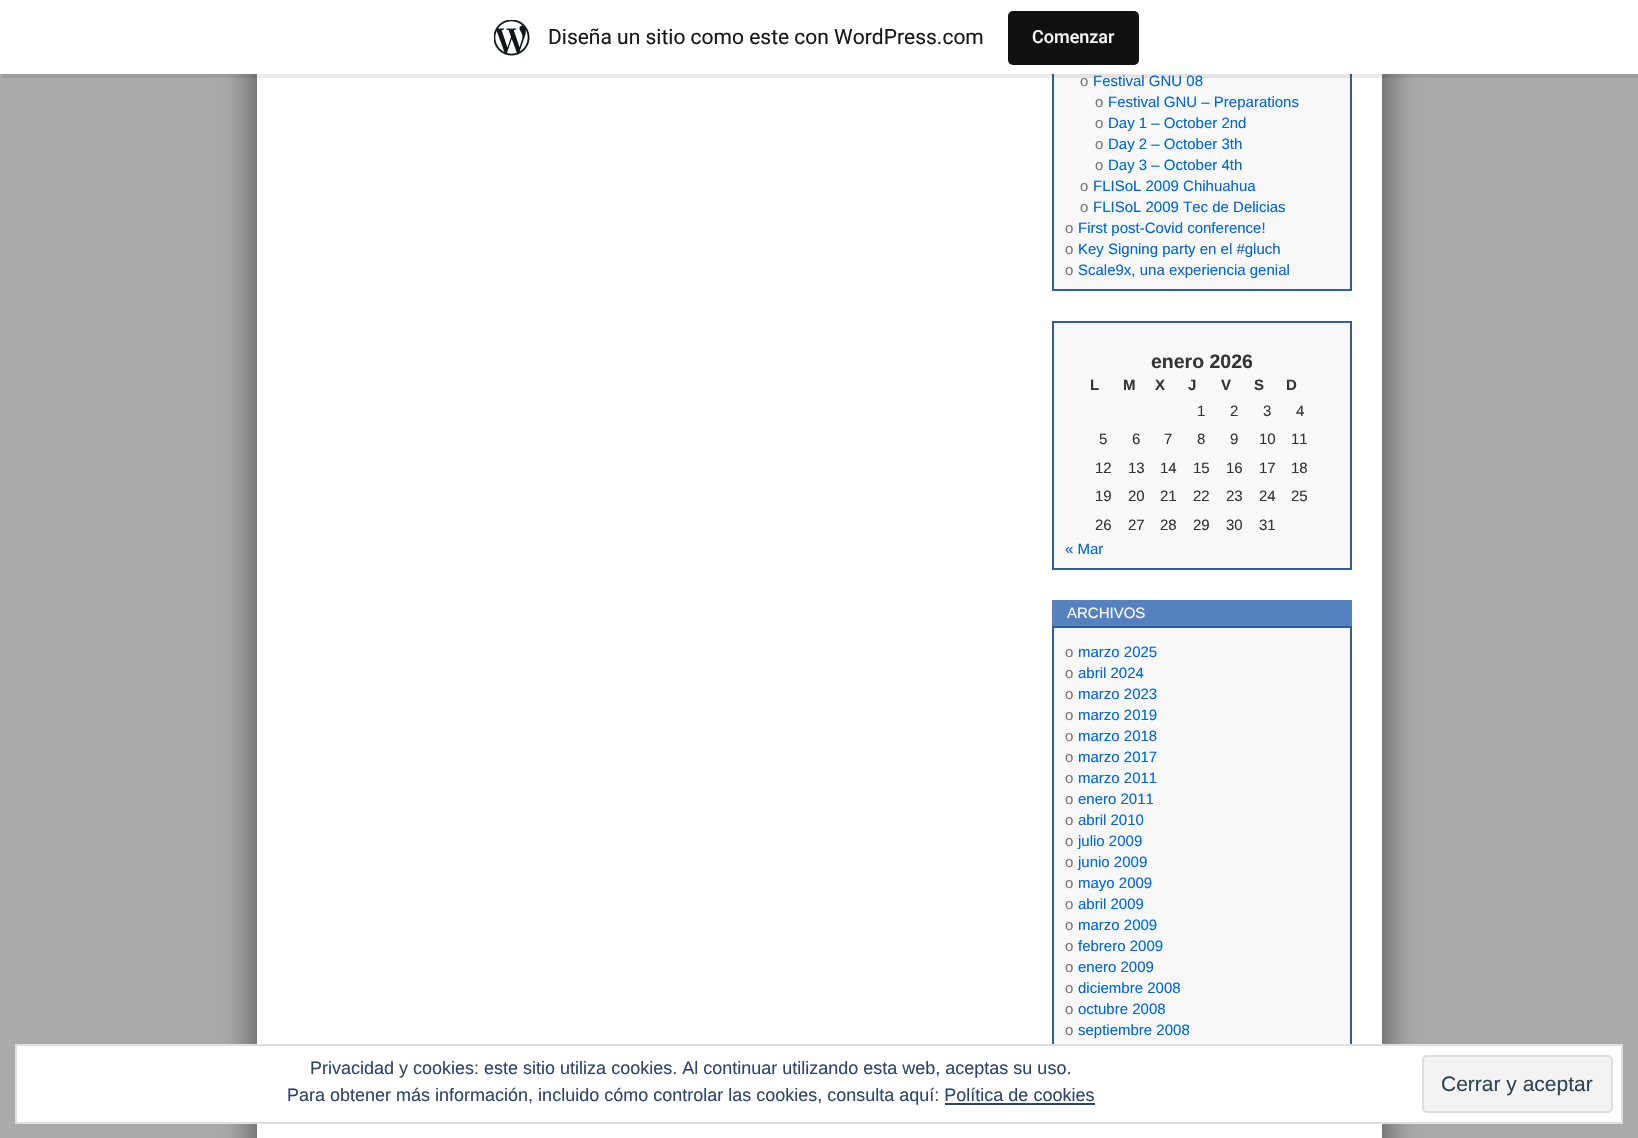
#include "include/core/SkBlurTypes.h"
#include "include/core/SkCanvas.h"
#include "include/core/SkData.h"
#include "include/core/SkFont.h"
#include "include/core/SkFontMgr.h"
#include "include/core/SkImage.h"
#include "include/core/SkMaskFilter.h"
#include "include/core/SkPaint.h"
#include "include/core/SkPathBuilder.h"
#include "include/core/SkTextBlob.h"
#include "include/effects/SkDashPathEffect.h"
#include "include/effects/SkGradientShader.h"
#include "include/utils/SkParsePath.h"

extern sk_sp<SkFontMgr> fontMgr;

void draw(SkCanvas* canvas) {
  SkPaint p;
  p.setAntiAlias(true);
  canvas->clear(SkColorSetRGB(170, 170, 170));
  p.setColor(SkColorSetARGB(77, 0, 0, 0));
  p.setMaskFilter(SkMaskFilter::MakeBlur(kNormal_SkBlurStyle, 12));
  canvas->drawRect(SkRect::MakeLTRB(245, -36, 1370, 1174), p);
  p.setMaskFilter(nullptr);
  p.setMaskFilter(SkMaskFilter::MakeBlur(kNormal_SkBlurStyle, 12));
  canvas->drawRect(SkRect::MakeLTRB(269, -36, 1394, 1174), p);
  p.setMaskFilter(nullptr);
  p.setColor(SK_ColorWHITE);
  canvas->drawRect(SkRect::MakeLTRB(257, 74, 1382, 1138), p);
  p.setColor(SkColorSetRGB(248, 248, 248));
  canvas->drawRect(SkRect::MakeLTRB(1054, 74, 1350, 289), p);
  p.setStyle(SkPaint::kStroke_Style);
  p.setStrokeWidth(2);
  p.setColor(SkColorSetRGB(46, 93, 153));
  canvas->drawRect(SkRect::MakeLTRB(1053, -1, 1351, 290), p);
  p.setStyle(SkPaint::kFill_Style);
  p.setColor(SkColorSetARGB(20, 0, 0, 0));
  canvas->drawPath(SkPathBuilder().moveTo(2, 74).lineTo(2, 78).lineTo(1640, 78).lineTo(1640, 5).lineTo(1638, 5).lineTo(1638, 74).close().detach(), p);
  p.setColor(SK_ColorWHITE);
  canvas->drawRect(SkRect::MakeLTRB(0, 0, 1638, 74), p);
  canvas->drawImageRect(SkImages::DeferredFromEncodedData(SkData::MakeFromFileName("images/1.png")), SkRect::MakeLTRB(494, 20, 530, 56), SkSamplingOptions());
  p.setColor(SkColorSetRGB(17, 17, 17));
  canvas->drawRoundRect(SkRect::MakeLTRB(1008, 11, 1139, 65), 5, 5, p);
  p.setColor(SkColorSetRGB(248, 248, 248));
  canvas->drawRect(SkRect::MakeLTRB(1053, 322, 1351, 569), p);
  p.setStyle(SkPaint::kStroke_Style);
  p.setColor(SkColorSetRGB(46, 93, 153));
  canvas->drawRect(SkRect::MakeLTRB(1053, 322, 1351, 569), p);
  p.setStyle(SkPaint::kFill_Style);
  p.setColor(SkColorSetRGB(85, 129, 192));
  canvas->drawRect(SkRect::MakeLTRB(1052, 600, 1352, 626), p);
  p.setColor(SkColorSetRGB(248, 248, 248));
  canvas->drawRect(SkRect::MakeLTRB(1054, 628, 1350, 1044), p);
  p.setStyle(SkPaint::kStroke_Style);
  p.setColor(SkColorSetRGB(46, 93, 153));
  canvas->drawRect(SkRect::MakeLTRB(1053, 627, 1351, 1114), p);
  p.setStyle(SkPaint::kFill_Style);
  p.setColor(SK_ColorWHITE);
  canvas->drawRect(SkRect::MakeLTRB(16, 1045, 1622, 1123), p);
  p.setStyle(SkPaint::kStroke_Style);
  p.setColor(SkColorSetRGB(222, 222, 222));
  canvas->drawRect(SkRect::MakeLTRB(16, 1045, 1622, 1123), p);
  p.setStyle(SkPaint::kFill_Style);
  p.setColor(SkColorSetRGB(243, 243, 243));
  canvas->drawRoundRect(SkRect::MakeLTRB(1423, 1056, 1612, 1112), 4, 4, p);
  p.setStyle(SkPaint::kStroke_Style);
  p.setColor(SkColorSetRGB(222, 222, 222));
  canvas->drawRoundRect(SkRect::MakeLTRB(1423, 1056, 1612, 1112), 4, 4, p);
  p.setStyle(SkPaint::kFill_Style);
  p.setColor(SkColorSetRGB(46, 68, 103));
  canvas->drawRect(SkRect::MakeLTRB(945, 1103, 1095, 1105), p);
  SkFont font1(fontMgr->matchFamilyStyle("Roboto", SkFontStyle::Normal()), 21);
  font1.setSubpixel(true);
  p.setColor(SkColorSetRGB(23, 23, 23));
  canvas->drawString("Diseña un sitio como este con WordPress.com", 548, 44, font1, p);
  SkFont font2(fontMgr->matchFamilyStyle("Roboto", SkFontStyle(500, SkFontStyle::kNormal_Width, SkFontStyle::kUpright_Slant)), 18);
  font2.setSubpixel(true);
  p.setColor(SkColorSetRGB(246, 247, 247));
  canvas->drawString("Comenzar", 1032, 43, font2, p);
  SkFont font3(fontMgr->matchFamilyStyle("Liberation Sans", SkFontStyle::Normal()), 15);
  font3.setSubpixel(true);
  p.setColor(SkColorSetRGB(119, 119, 119));
  canvas->drawString("o", 1080, 86, font3, p);
  p.setColor(SkColorSetRGB(0, 102, 204));
  canvas->drawString("Festival GNU 08", 1093, 86, font3, p);
  p.setColor(SkColorSetRGB(119, 119, 119));
  canvas->drawString("o", 1095, 107, font3, p);
  p.setColor(SkColorSetRGB(0, 102, 204));
  canvas->drawString("Festival GNU – Preparations", 1108, 107, font3, p);
  p.setColor(SkColorSetRGB(119, 119, 119));
  canvas->drawString("o", 1095, 128, font3, p);
  p.setColor(SkColorSetRGB(0, 102, 204));
  canvas->drawString("Day 1 – October 2nd", 1108, 128, font3, p);
  p.setColor(SkColorSetRGB(119, 119, 119));
  canvas->drawString("o", 1095, 149, font3, p);
  p.setColor(SkColorSetRGB(0, 102, 204));
  canvas->drawString("Day 2 – October 3th", 1108, 149, font3, p);
  p.setColor(SkColorSetRGB(119, 119, 119));
  canvas->drawString("o", 1095, 170, font3, p);
  p.setColor(SkColorSetRGB(0, 102, 204));
  canvas->drawString("Day 3 – October 4th", 1108, 170, font3, p);
  p.setColor(SkColorSetRGB(119, 119, 119));
  canvas->drawString("o", 1080, 191, font3, p);
  p.setColor(SkColorSetRGB(0, 102, 204));
  canvas->drawString("FLISoL 2009 Chihuahua", 1093, 191, font3, p);
  p.setColor(SkColorSetRGB(119, 119, 119));
  canvas->drawString("o", 1080, 212, font3, p);
  p.setColor(SkColorSetRGB(0, 102, 204));
  canvas->drawString("FLISoL 2009 Tec de Delicias", 1093, 212, font3, p);
  p.setColor(SkColorSetRGB(119, 119, 119));
  canvas->drawString("o", 1065, 233, font3, p);
  p.setColor(SkColorSetRGB(0, 102, 204));
  canvas->drawString("First post-Covid conference!", 1078, 233, font3, p);
  p.setColor(SkColorSetRGB(119, 119, 119));
  canvas->drawString("o", 1065, 254, font3, p);
  p.setColor(SkColorSetRGB(0, 102, 204));
  canvas->drawString("Key Signing party en el #gluch", 1078, 254, font3, p);
  p.setColor(SkColorSetRGB(119, 119, 119));
  canvas->drawString("o", 1065, 275, font3, p);
  p.setColor(SkColorSetRGB(0, 102, 204));
  canvas->drawString("Scale9x, una experiencia genial", 1078, 275, font3, p);
  SkFont font4(fontMgr->matchFamilyStyle("Liberation Sans", SkFontStyle::Bold()), 19.5f);
  font4.setSubpixel(true);
  p.setColor(SkColorSetRGB(51, 51, 51));
  canvas->drawString("enero 2026", 1151, 368, font4, p);
  SkFont font5(fontMgr->matchFamilyStyle("Liberation Sans", SkFontStyle::Bold()), 15);
  font5.setSubpixel(true);
  canvas->drawString("L", 1090, 390, font5, p);
  canvas->drawString("M", 1123, 390, font5, p);
  canvas->drawString("X", 1155, 390, font5, p);
  canvas->drawString("J", 1188, 390, font5, p);
  canvas->drawString("V", 1221, 390, font5, p);
  canvas->drawString("S", 1254, 390, font5, p);
  canvas->drawString("D", 1286, 390, font5, p);
  canvas->drawString("1", 1197, 416, font3, p);
  canvas->drawString("2", 1230, 416, font3, p);
  canvas->drawString("3", 1263, 416, font3, p);
  canvas->drawString("4", 1296, 416, font3, p);
  canvas->drawString("5", 1099, 444, font3, p);
  canvas->drawString("6", 1132, 444, font3, p);
  canvas->drawString("7", 1164, 444, font3, p);
  canvas->drawString("8", 1197, 444, font3, p);
  canvas->drawString("9", 1230, 444, font3, p);
  canvas->drawString("10", 1259, 444, font3, p);
  canvas->drawString("11", 1291, 444, font3, p);
  canvas->drawString("12", 1095, 473, font3, p);
  canvas->drawString("13", 1128, 473, font3, p);
  canvas->drawString("14", 1160, 473, font3, p);
  canvas->drawString("15", 1193, 473, font3, p);
  canvas->drawString("16", 1226, 473, font3, p);
  canvas->drawString("17", 1259, 473, font3, p);
  canvas->drawString("18", 1291, 473, font3, p);
  canvas->drawString("19", 1095, 501, font3, p);
  canvas->drawString("20", 1128, 501, font3, p);
  canvas->drawString("21", 1160, 501, font3, p);
  canvas->drawString("22", 1193, 501, font3, p);
  canvas->drawString("23", 1226, 501, font3, p);
  canvas->drawString("24", 1259, 501, font3, p);
  canvas->drawString("25", 1291, 501, font3, p);
  canvas->drawString("26", 1095, 530, font3, p);
  canvas->drawString("27", 1128, 530, font3, p);
  canvas->drawString("28", 1160, 530, font3, p);
  canvas->drawString("29", 1193, 530, font3, p);
  canvas->drawString("30", 1226, 530, font3, p);
  canvas->drawString("31", 1259, 530, font3, p);
  p.setColor(SkColorSetRGB(0, 102, 204));
  canvas->drawString("« Mar", 1065, 554, font3, p);
  p.setColor(SK_ColorWHITE);
  canvas->drawString("ARCHIVOS", 1067, 618, font3, p);
  p.setColor(SkColorSetRGB(119, 119, 119));
  canvas->drawString("o", 1065, 657, font3, p);
  p.setColor(SkColorSetRGB(0, 102, 204));
  canvas->drawString("marzo 2025", 1078, 657, font3, p);
  p.setColor(SkColorSetRGB(119, 119, 119));
  canvas->drawString("o", 1065, 678, font3, p);
  p.setColor(SkColorSetRGB(0, 102, 204));
  canvas->drawString("abril 2024", 1078, 678, font3, p);
  p.setColor(SkColorSetRGB(119, 119, 119));
  canvas->drawString("o", 1065, 699, font3, p);
  p.setColor(SkColorSetRGB(0, 102, 204));
  canvas->drawString("marzo 2023", 1078, 699, font3, p);
  p.setColor(SkColorSetRGB(119, 119, 119));
  canvas->drawString("o", 1065, 720, font3, p);
  p.setColor(SkColorSetRGB(0, 102, 204));
  canvas->drawString("marzo 2019", 1078, 720, font3, p);
  p.setColor(SkColorSetRGB(119, 119, 119));
  canvas->drawString("o", 1065, 741, font3, p);
  p.setColor(SkColorSetRGB(0, 102, 204));
  canvas->drawString("marzo 2018", 1078, 741, font3, p);
  p.setColor(SkColorSetRGB(119, 119, 119));
  canvas->drawString("o", 1065, 762, font3, p);
  p.setColor(SkColorSetRGB(0, 102, 204));
  canvas->drawString("marzo 2017", 1078, 762, font3, p);
  p.setColor(SkColorSetRGB(119, 119, 119));
  canvas->drawString("o", 1065, 783, font3, p);
  p.setColor(SkColorSetRGB(0, 102, 204));
  canvas->drawString("marzo 2011", 1078, 783, font3, p);
  p.setColor(SkColorSetRGB(119, 119, 119));
  canvas->drawString("o", 1065, 804, font3, p);
  p.setColor(SkColorSetRGB(0, 102, 204));
  canvas->drawString("enero 2011", 1078, 804, font3, p);
  p.setColor(SkColorSetRGB(119, 119, 119));
  canvas->drawString("o", 1065, 825, font3, p);
  p.setColor(SkColorSetRGB(0, 102, 204));
  canvas->drawString("abril 2010", 1078, 825, font3, p);
  p.setColor(SkColorSetRGB(119, 119, 119));
  canvas->drawString("o", 1065, 846, font3, p);
  p.setColor(SkColorSetRGB(0, 102, 204));
  canvas->drawString("julio 2009", 1078, 846, font3, p);
  p.setColor(SkColorSetRGB(119, 119, 119));
  canvas->drawString("o", 1065, 867, font3, p);
  p.setColor(SkColorSetRGB(0, 102, 204));
  canvas->drawString("junio 2009", 1078, 867, font3, p);
  p.setColor(SkColorSetRGB(119, 119, 119));
  canvas->drawString("o", 1065, 888, font3, p);
  p.setColor(SkColorSetRGB(0, 102, 204));
  canvas->drawString("mayo 2009", 1078, 888, font3, p);
  p.setColor(SkColorSetRGB(119, 119, 119));
  canvas->drawString("o", 1065, 909, font3, p);
  p.setColor(SkColorSetRGB(0, 102, 204));
  canvas->drawString("abril 2009", 1078, 909, font3, p);
  p.setColor(SkColorSetRGB(119, 119, 119));
  canvas->drawString("o", 1065, 930, font3, p);
  p.setColor(SkColorSetRGB(0, 102, 204));
  canvas->drawString("marzo 2009", 1078, 930, font3, p);
  p.setColor(SkColorSetRGB(119, 119, 119));
  canvas->drawString("o", 1065, 951, font3, p);
  p.setColor(SkColorSetRGB(0, 102, 204));
  canvas->drawString("febrero 2009", 1078, 951, font3, p);
  p.setColor(SkColorSetRGB(119, 119, 119));
  canvas->drawString("o", 1065, 972, font3, p);
  p.setColor(SkColorSetRGB(0, 102, 204));
  canvas->drawString("enero 2009", 1078, 972, font3, p);
  p.setColor(SkColorSetRGB(119, 119, 119));
  canvas->drawString("o", 1065, 993, font3, p);
  p.setColor(SkColorSetRGB(0, 102, 204));
  canvas->drawString("diciembre 2008", 1078, 993, font3, p);
  p.setColor(SkColorSetRGB(119, 119, 119));
  canvas->drawString("o", 1065, 1014, font3, p);
  p.setColor(SkColorSetRGB(0, 102, 204));
  canvas->drawString("octubre 2008", 1078, 1014, font3, p);
  p.setColor(SkColorSetRGB(119, 119, 119));
  canvas->drawString("o", 1065, 1035, font3, p);
  p.setColor(SkColorSetRGB(0, 102, 204));
  canvas->drawString("septiembre 2008", 1078, 1035, font3, p);
  SkFont font6(fontMgr->matchFamilyStyle("Liberation Sans", SkFontStyle::Normal()), 18);
  font6.setSubpixel(true);
  p.setColor(SkColorSetRGB(46, 68, 103));
  canvas->drawString("Privacidad y cookies: este sitio utiliza cookies. Al continuar utilizando esta web, aceptas su uso.", 310, 1074, font6, p);
  canvas->drawString("Para obtener más información, incluido cómo controlar las cookies, consulta aquí: Política de cookies", 287, 1101, font6, p);
  SkFont font7(fontMgr->matchFamilyStyle("Liberation Sans", SkFontStyle::Normal()), 21);
  font7.setSubpixel(true);
  p.setColor(SkColorSetRGB(46, 68, 83));
  canvas->drawString("Cerrar y aceptar", 1441, 1091, font7, p);
}
